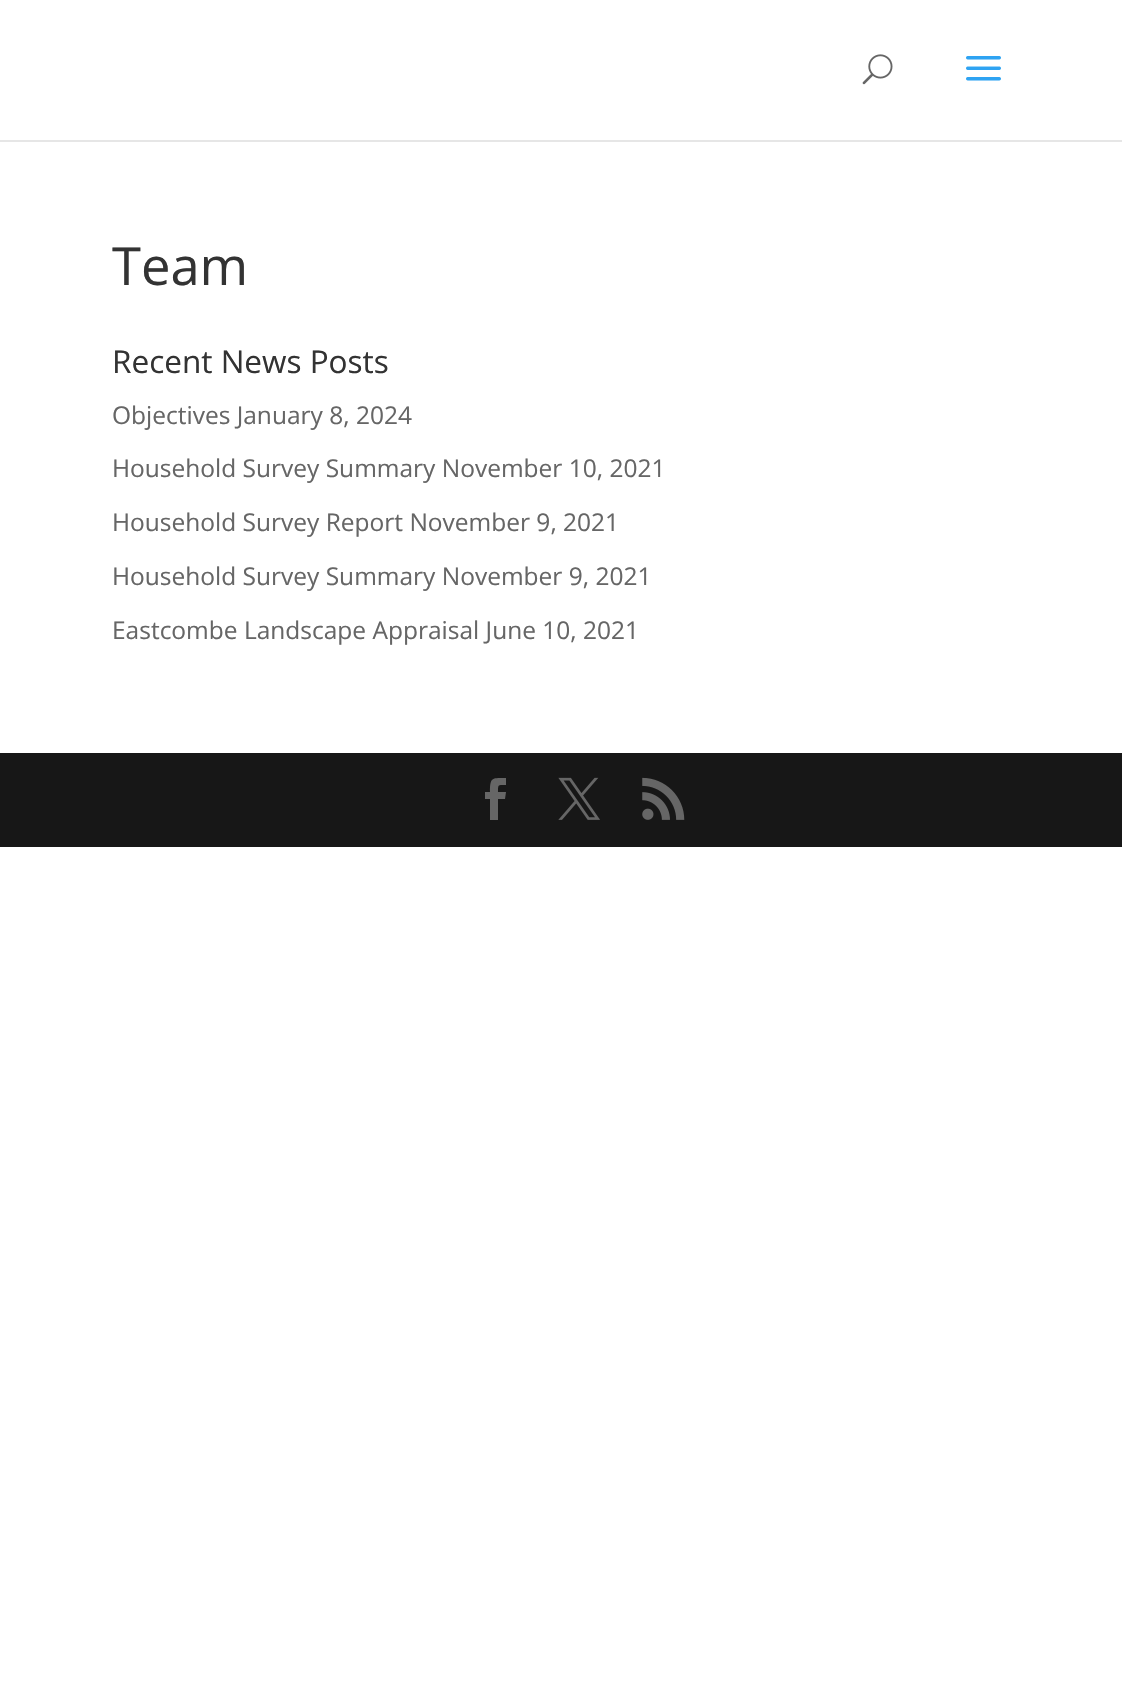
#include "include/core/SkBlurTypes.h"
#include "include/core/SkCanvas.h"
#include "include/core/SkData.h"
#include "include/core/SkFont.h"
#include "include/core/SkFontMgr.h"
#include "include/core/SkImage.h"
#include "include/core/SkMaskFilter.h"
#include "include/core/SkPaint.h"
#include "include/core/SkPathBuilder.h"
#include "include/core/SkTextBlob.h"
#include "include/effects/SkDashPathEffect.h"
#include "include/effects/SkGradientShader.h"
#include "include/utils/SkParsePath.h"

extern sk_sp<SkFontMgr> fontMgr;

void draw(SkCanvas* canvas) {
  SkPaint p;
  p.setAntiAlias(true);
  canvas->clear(SK_ColorWHITE);
  p.setColor(SkColorSetRGB(230, 230, 230));
  canvas->drawPath(SkPathBuilder().moveTo(0, 140).lineTo(0, 142).lineTo(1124, 142).lineTo(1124, 2).lineTo(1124, 140).close().detach(), p);
  canvas->drawImageRect(SkImages::DeferredFromEncodedData(SkData::MakeFromFileName("images/1.png")), SkRect::MakeLTRB(862, 54, 893, 85), SkSamplingOptions());
  canvas->drawImageRect(SkImages::DeferredFromEncodedData(SkData::MakeFromFileName("images/2.png")), SkRect::MakeLTRB(966, 56, 1001, 81), SkSamplingOptions());
  p.setColor(SkColorSetRGB(23, 23, 23));
  canvas->drawRect(SkRect::MakeLTRB(0, 753, 1122, 847), p);
  p.setColor(SkColorSetRGB(102, 102, 102));
  canvas->drawPath(SkPathBuilder().moveTo(490, 820).lineTo(498, 820).lineTo(498, 799).lineTo(505, 799).lineTo(506, 792).lineTo(498, 792).cubicTo(498, 784, 498, 785, 506, 785).lineTo(506, 778).cubicTo(492, 778, 490, 777, 490, 792).lineTo(485, 792).lineTo(485, 799).lineTo(490, 799).close().detach(), p);
  canvas->drawImageRect(SkImages::DeferredFromEncodedData(SkData::MakeFromFileName("images/3.png")), SkRect::MakeLTRB(558, 777, 600, 820), SkSamplingOptions());
  canvas->drawImageRect(SkImages::DeferredFromEncodedData(SkData::MakeFromFileName("images/4.png")), SkRect::MakeLTRB(642, 777, 685, 820), SkSamplingOptions());
  SkFont font1(fontMgr->matchFamilyStyle("Open Sans", SkFontStyle::Normal()), 52.5f);
  font1.setSubpixel(true);
  p.setColor(SkColorSetRGB(51, 51, 51));
  canvas->drawString("Team", 112, 285, font1, p);
  SkFont font2(fontMgr->matchFamilyStyle("Open Sans", SkFontStyle::Normal()), 31.5f);
  font2.setSubpixel(true);
  canvas->drawString("Recent News Posts", 112, 373, font2, p);
  SkFont font3(fontMgr->matchFamilyStyle("Open Sans", SkFontStyle::Normal()), 24.5f);
  font3.setSubpixel(true);
  p.setColor(SkColorSetRGB(102, 102, 102));
  canvas->drawString("Objectives January 8, 2024", 112, 424, font3, p);
  canvas->drawString("Household Survey Summary November 10, 2021", 112, 477, font3, p);
  canvas->drawString("Household Survey Report November 9, 2021", 112, 531, font3, p);
  canvas->drawString("Household Survey Summary November 9, 2021", 112, 585, font3, p);
  canvas->drawString("Eastcombe Landscape Appraisal June 10, 2021", 112, 639, font3, p);
}
